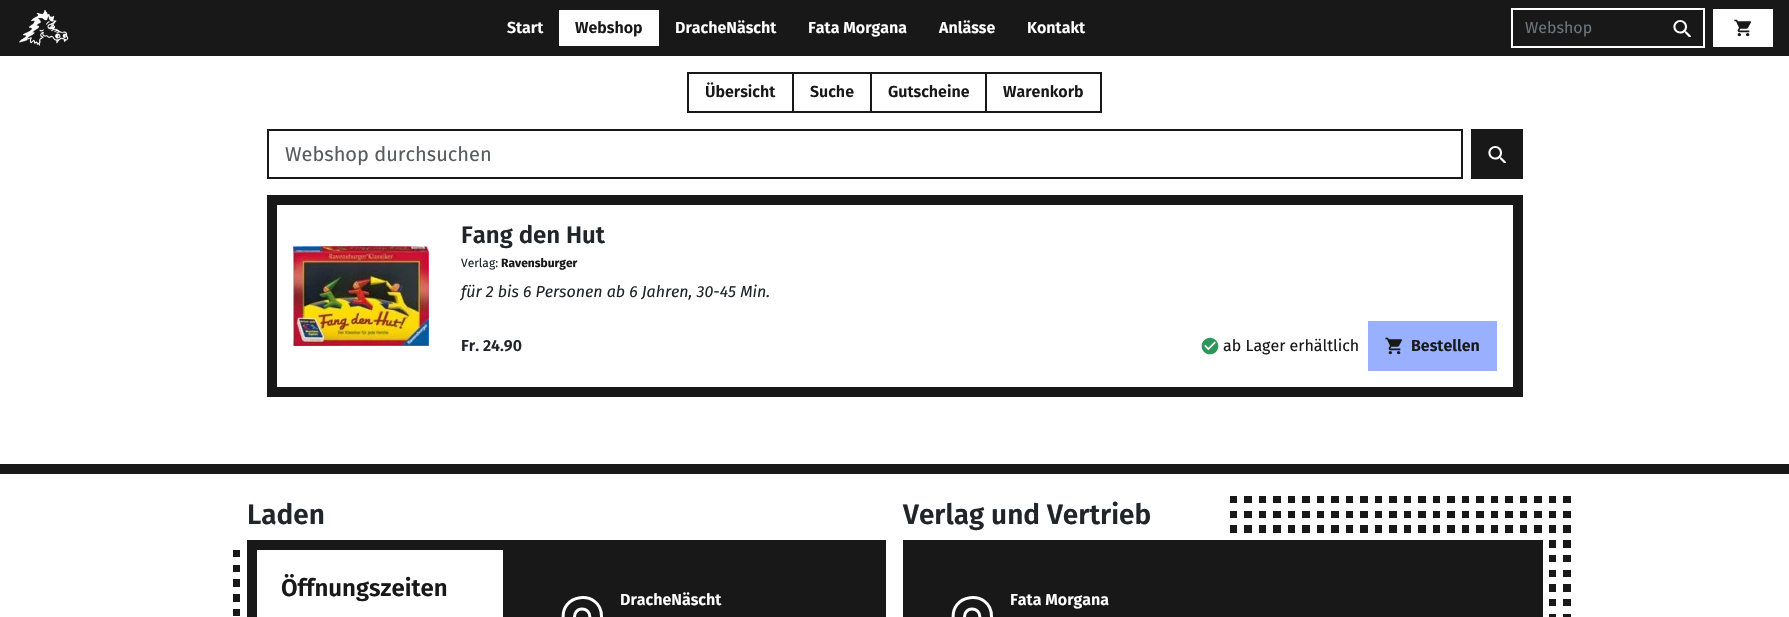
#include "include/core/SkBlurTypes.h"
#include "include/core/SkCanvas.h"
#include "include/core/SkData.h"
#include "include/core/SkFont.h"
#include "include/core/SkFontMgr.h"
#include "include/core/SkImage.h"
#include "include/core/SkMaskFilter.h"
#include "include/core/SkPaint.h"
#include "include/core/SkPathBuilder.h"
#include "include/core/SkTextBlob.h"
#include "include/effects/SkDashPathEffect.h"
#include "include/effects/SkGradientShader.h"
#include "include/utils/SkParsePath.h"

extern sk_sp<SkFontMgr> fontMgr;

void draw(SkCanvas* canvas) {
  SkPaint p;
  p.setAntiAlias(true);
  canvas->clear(SK_ColorWHITE);
  p.setColor(SkColorSetRGB(24, 24, 24));
  canvas->drawRect(SkRect::MakeLTRB(0, 0, 1789, 56), p);
  canvas->drawImageRect(SkImages::DeferredFromEncodedData(SkData::MakeFromFileName("images/1.png")), SkRect::MakeLTRB(19, 9, 69, 46), SkSamplingOptions());
  p.setColor(SK_ColorWHITE);
  canvas->drawRect(SkRect::MakeLTRB(559, 10, 659, 46), p);
  canvas->drawRect(SkRect::MakeLTRB(1511, 8, 1705, 10), p);
  canvas->drawRect(SkRect::MakeLTRB(1511, 46, 1661, 48), p);
  canvas->drawRect(SkRect::MakeLTRB(1511, 8, 1513, 48), p);
  canvas->drawRect(SkRect::MakeLTRB(1703, 8, 1705, 48), p);
  canvas->drawRect(SkRect::MakeLTRB(1661, 46, 1705, 48), p);
  canvas->drawImageRect(SkImages::DeferredFromEncodedData(SkData::MakeFromFileName("images/2.png")), SkRect::MakeLTRB(1673, 20, 1691, 37), SkSamplingOptions());
  canvas->drawRect(SkRect::MakeLTRB(1713, 9, 1773, 47), p);
  canvas->drawImageRect(SkImages::DeferredFromEncodedData(SkData::MakeFromFileName("images/3.png")), SkRect::MakeLTRB(1734, 19, 1751, 37), SkSamplingOptions());
  p.setStyle(SkPaint::kStroke_Style);
  p.setStrokeWidth(2);
  p.setColor(SkColorSetRGB(24, 24, 24));
  canvas->drawRect(SkRect::MakeLTRB(688, 73, 793, 112), p);
  p.setStyle(SkPaint::kFill_Style);
  canvas->drawRect(SkRect::MakeLTRB(794, 72, 1102, 74), p);
  canvas->drawRect(SkRect::MakeLTRB(870, 72, 872, 113), p);
  canvas->drawRect(SkRect::MakeLTRB(794, 111, 872, 113), p);
  canvas->drawRect(SkRect::MakeLTRB(985, 72, 987, 113), p);
  canvas->drawRect(SkRect::MakeLTRB(872, 111, 987, 113), p);
  canvas->drawRect(SkRect::MakeLTRB(1100, 72, 1102, 113), p);
  canvas->drawRect(SkRect::MakeLTRB(987, 111, 1102, 113), p);
  p.setStyle(SkPaint::kStroke_Style);
  canvas->drawRect(SkRect::MakeLTRB(268, 130, 1462, 178), p);
  p.setStyle(SkPaint::kFill_Style);
  canvas->drawRect(SkRect::MakeLTRB(1471, 129, 1523, 179), p);
  canvas->drawImageRect(SkImages::DeferredFromEncodedData(SkData::MakeFromFileName("images/2.png")), SkRect::MakeLTRB(1488, 146, 1506, 163), SkSamplingOptions());
  p.setStyle(SkPaint::kStroke_Style);
  p.setStrokeWidth(10);
  canvas->drawRect(SkRect::MakeLTRB(272, 200, 1518, 392), p);
  canvas->drawImageRect(SkImages::DeferredFromEncodedData(SkData::MakeFromFileName("images/4.png")), SkRect::MakeLTRB(293, 246, 429, 346), SkSamplingOptions());
  canvas->drawImageRect(SkImages::DeferredFromEncodedData(SkData::MakeFromFileName("images/5.png")), SkRect::MakeLTRB(1201, 337, 1219, 355), SkSamplingOptions());
  p.setStyle(SkPaint::kFill_Style);
  p.setColor(SkColorSetRGB(153, 175, 255));
  canvas->drawRect(SkRect::MakeLTRB(1368, 321, 1497, 371), p);
  canvas->drawImageRect(SkImages::DeferredFromEncodedData(SkData::MakeFromFileName("images/6.png")), SkRect::MakeLTRB(1385, 337, 1402, 355), SkSamplingOptions());
  p.setColor(SkColorSetRGB(24, 24, 24));
  canvas->drawRect(SkRect::MakeLTRB(0, 464, 1789, 474), p);
  p.setStyle(SkPaint::kStroke_Style);
  canvas->drawRect(SkRect::MakeLTRB(252, 545, 508, 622), p);
  canvas->drawImageRect(SkImages::DeferredFromEncodedData(SkData::MakeFromFileName("images/7.png")), SkRect::MakeLTRB(233, 550, 240, 616), SkSamplingOptions());
  p.setStyle(SkPaint::kFill_Style);
  canvas->drawRect(SkRect::MakeLTRB(513, 540, 886, 617), p);
  p.setStyle(SkPaint::kStroke_Style);
  p.setStrokeWidth(3);
  p.setStrokeCap(SkPaint::kRound_Cap);
  p.setStrokeJoin(SkPaint::kRound_Join);
  p.setColor(SK_ColorWHITE);
  canvas->drawPath(SkPathBuilder().moveTo(582, 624.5f).cubicTo(592.5f, 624.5f, 592.5f, 609, 582, 609).cubicTo(572, 609, 572, 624.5f, 582, 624.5f).close().moveTo(601.5f, 616.5f).cubicTo(601.5f, 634, 582, 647.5f, 582, 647.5f).cubicTo(574, 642, 566, 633, 564, 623).cubicTo(556.5f, 592.5f, 601.5f, 588.5f, 601.5f, 616.5f).close().detach(), p);
  canvas->drawImageRect(SkImages::DeferredFromEncodedData(SkData::MakeFromFileName("images/8.png")), SkRect::MakeLTRB(1230, 496, 1571, 617), SkSamplingOptions());
  p.setStyle(SkPaint::kFill_Style);
  p.setColor(SkColorSetRGB(24, 24, 24));
  canvas->drawRect(SkRect::MakeLTRB(903, 540, 1543, 617), p);
  p.setStyle(SkPaint::kStroke_Style);
  p.setColor(SK_ColorWHITE);
  canvas->drawPath(SkPathBuilder().moveTo(972, 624.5f).cubicTo(982.5f, 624.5f, 982.5f, 609, 972, 609).cubicTo(962, 609, 962, 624.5f, 972, 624.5f).close().moveTo(991.5f, 616.5f).cubicTo(991.5f, 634, 972, 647.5f, 972, 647.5f).cubicTo(964, 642, 956, 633, 954, 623).cubicTo(946.5f, 592.5f, 991.5f, 588.5f, 991.5f, 616.5f).close().detach(), p);
  SkFont font1(fontMgr->matchFamilyStyle("Fira Sans", SkFontStyle(600, SkFontStyle::kNormal_Width, SkFontStyle::kUpright_Slant)), 16);
  font1.setSubpixel(true);
  p.setStyle(SkPaint::kFill_Style);
  canvas->drawString("Start", 507, 33, font1, p);
  p.setColor(SkColorSetRGB(24, 24, 24));
  canvas->drawString("Webshop", 575, 33, font1, p);
  p.setColor(SK_ColorWHITE);
  canvas->drawString("DracheNäscht", 675, 33, font1, p);
  canvas->drawString("Fata Morgana", 808, 33, font1, p);
  canvas->drawString("Anlässe", 939, 33, font1, p);
  canvas->drawString("Kontakt", 1027, 33, font1, p);
  SkFont font2(fontMgr->matchFamilyStyle("Fira Sans", SkFontStyle::Normal()), 16);
  font2.setSubpixel(true);
  p.setColor(SkColorSetRGB(108, 117, 125));
  canvas->drawString("Webshop", 1525, 33, font2, p);
  p.setColor(SkColorSetRGB(24, 24, 24));
  canvas->drawString("Übersicht", 705, 97, font1, p);
  canvas->drawString("Suche", 810, 97, font1, p);
  canvas->drawString("Gutscheine", 888, 97, font1, p);
  canvas->drawString("Warenkorb", 1003, 97, font1, p);
  SkFont font3(fontMgr->matchFamilyStyle("Fira Sans", SkFontStyle::Normal()), 20);
  font3.setSubpixel(true);
  p.setColor(SkColorSetRGB(89, 92, 95));
  canvas->drawString("Webshop durchsuchen", 285, 161, font3, p);
  SkFont font4(fontMgr->matchFamilyStyle("Fira Sans", SkFontStyle(600, SkFontStyle::kNormal_Width, SkFontStyle::kUpright_Slant)), 24);
  font4.setSubpixel(true);
  p.setColor(SkColorSetRGB(33, 37, 41));
  canvas->drawString("Fang den Hut", 461, 243, font4, p);
  SkFont font5(fontMgr->matchFamilyStyle("Fira Sans", SkFontStyle::Normal()), 12);
  font5.setSubpixel(true);
  canvas->drawString("Verlag:", 461, 267, font5, p);
  SkFont font6(fontMgr->matchFamilyStyle("Fira Sans", SkFontStyle::Bold()), 12);
  font6.setSubpixel(true);
  p.setColor(SkColorSetRGB(24, 24, 24));
  canvas->drawString("Ravensburger", 501, 267, font6, p);
  SkFont font7(fontMgr->matchFamilyStyle("Fira Sans", SkFontStyle::Italic()), 16);
  font7.setSubpixel(true);
  p.setColor(SkColorSetRGB(33, 37, 41));
  canvas->drawString("für 2 bis 6 Personen ab 6 Jahren, 30-45 Min.", 461, 297, font7, p);
  canvas->drawString("Fr. 24.90", 461, 351, font1, p);
  p.setColor(SkColorSetRGB(24, 24, 24));
  canvas->drawString("ab Lager erhältlich", 1223, 351, font2, p);
  canvas->drawString("Bestellen", 1411, 351, font1, p);
  SkFont font8(fontMgr->matchFamilyStyle("Fira Sans", SkFontStyle(600, SkFontStyle::kNormal_Width, SkFontStyle::kUpright_Slant)), 28);
  font8.setSubpixel(true);
  p.setColor(SkColorSetRGB(33, 37, 41));
  canvas->drawString("Laden", 247, 524, font8, p);
  p.setColor(SkColorSetRGB(24, 24, 24));
  canvas->drawString("Öffnungszeiten", 281, 596, font4, p);
  p.setColor(SK_ColorWHITE);
  canvas->drawString("DracheNäscht", 620, 605, font1, p);
  p.setColor(SkColorSetRGB(33, 37, 41));
  canvas->drawString("Verlag und Vertrieb", 903, 524, font8, p);
  p.setColor(SK_ColorWHITE);
  canvas->drawString("Fata Morgana", 1010, 605, font1, p);
}
